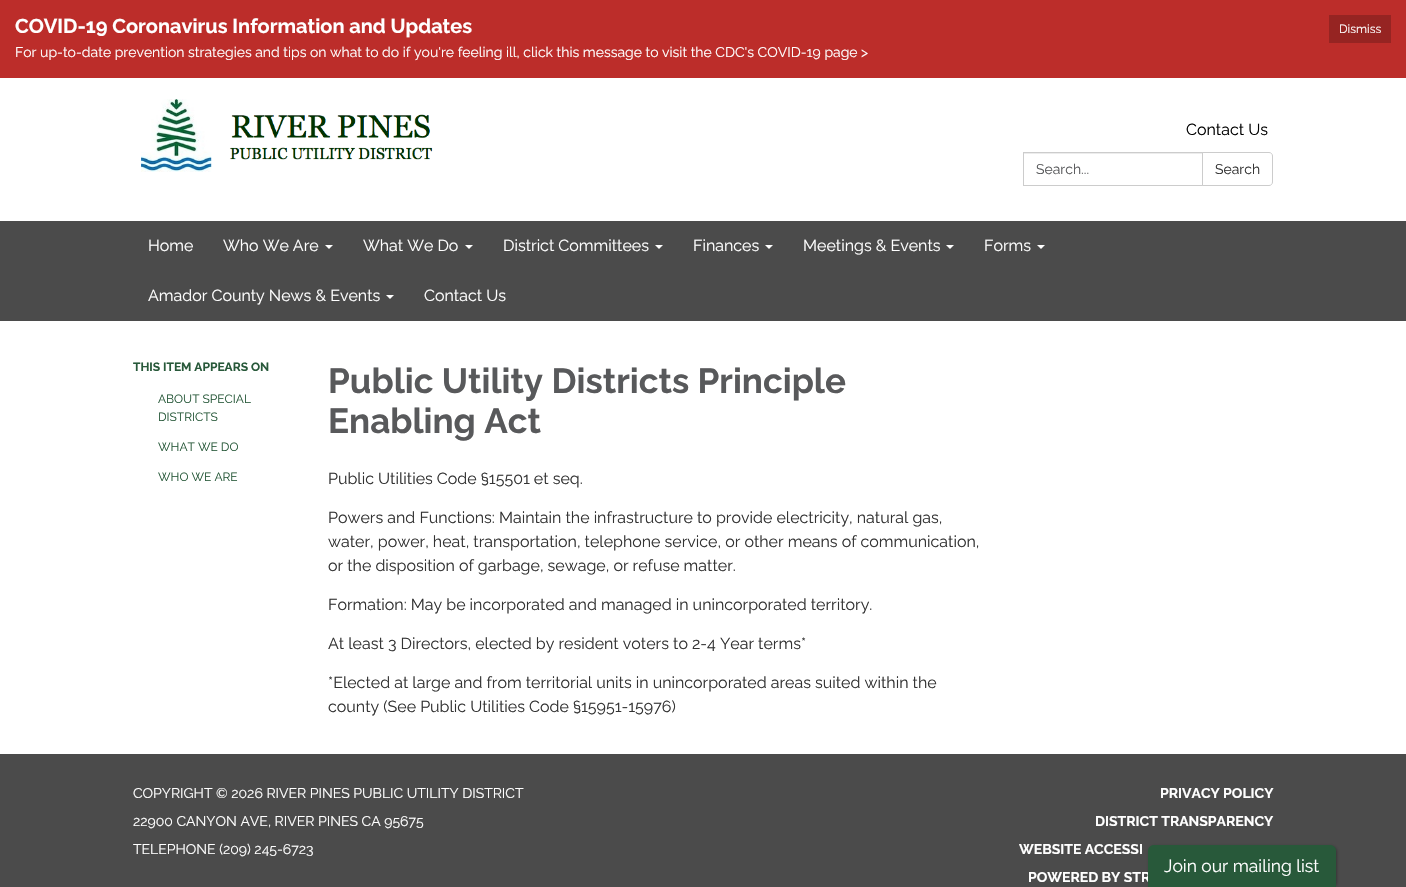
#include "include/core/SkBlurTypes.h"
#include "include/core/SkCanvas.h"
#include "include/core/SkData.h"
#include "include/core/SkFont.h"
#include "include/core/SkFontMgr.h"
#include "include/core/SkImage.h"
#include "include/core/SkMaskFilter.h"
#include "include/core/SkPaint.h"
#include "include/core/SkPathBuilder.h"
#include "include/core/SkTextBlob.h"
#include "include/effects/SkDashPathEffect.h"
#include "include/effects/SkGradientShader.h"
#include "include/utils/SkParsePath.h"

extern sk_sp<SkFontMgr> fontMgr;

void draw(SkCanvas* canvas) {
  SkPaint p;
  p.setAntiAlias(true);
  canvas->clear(SkColorSetRGB(75, 75, 75));
  p.setColor(SkColorSetRGB(188, 45, 42));
  canvas->drawRect(SkRect::MakeLTRB(0, 0, 1406, 78), p);
  p.setColor(SkColorSetRGB(150, 36, 34));
  canvas->drawRect(SkRect::MakeLTRB(1329, 15, 1391, 43), p);
  p.setColor(SK_ColorWHITE);
  canvas->drawRect(SkRect::MakeLTRB(0, 78, 1406, 221), p);
  canvas->drawImageRect(SkImages::DeferredFromEncodedData(SkData::MakeFromFileName("images/1.png")), SkRect::MakeLTRB(141, 99, 433, 172), SkSamplingOptions());
  p.setColor(SkColorSetRGB(236, 236, 236));
  canvas->drawRect(SkRect::MakeLTRB(1024, 153, 1202, 154), p);
  p.setStyle(SkPaint::kStroke_Style);
  p.setStrokeWidth(1);
  p.setColor(SkColorSetRGB(204, 204, 204));
  canvas->drawRect(SkRect::MakeLTRB(1023.5f, 152.5f, 1202.5f, 185.5f), p);
  p.setStyle(SkPaint::kFill_Style);
  p.setColor(SK_ColorWHITE);
  canvas->drawPath(SkPathBuilder().moveTo(1202.5f, 152.5f).lineTo(1269, 152.5f).cubicTo(1271, 152.5f, 1272.5f, 154, 1272.5f, 156).lineTo(1272.5f, 182).cubicTo(1272.5f, 184, 1271, 185.5f, 1269, 185.5f).lineTo(1202.5f, 185.5f).close().detach(), p);
  p.setStyle(SkPaint::kStroke_Style);
  p.setColor(SkColorSetRGB(204, 204, 204));
  canvas->drawPath(SkPathBuilder().moveTo(1202.5f, 152.5f).lineTo(1269, 152.5f).cubicTo(1271, 152.5f, 1272.5f, 154, 1272.5f, 156).lineTo(1272.5f, 182).cubicTo(1272.5f, 184, 1271, 185.5f, 1269, 185.5f).lineTo(1202.5f, 185.5f).close().detach(), p);
  p.setStyle(SkPaint::kFill_Style);
  p.setColor(SK_ColorWHITE);
  canvas->drawPath(SkPathBuilder().moveTo(325, 245).lineTo(333, 245).lineTo(329, 249).close().detach(), p);
  canvas->drawPath(SkPathBuilder().moveTo(465, 245).lineTo(473, 245).lineTo(469, 249).close().detach(), p);
  canvas->drawPath(SkPathBuilder().moveTo(655, 245).lineTo(663, 245).lineTo(659, 249).close().detach(), p);
  canvas->drawPath(SkPathBuilder().moveTo(765, 245).lineTo(773, 245).lineTo(769, 249).close().detach(), p);
  canvas->drawPath(SkPathBuilder().moveTo(946, 245).lineTo(954, 245).lineTo(950, 249).close().detach(), p);
  canvas->drawPath(SkPathBuilder().moveTo(1037, 245).lineTo(1045, 245).lineTo(1041, 249).close().detach(), p);
  canvas->drawPath(SkPathBuilder().moveTo(386, 295).lineTo(394, 295).lineTo(390, 299).close().detach(), p);
  canvas->drawRect(SkRect::MakeLTRB(0, 321, 1406, 754), p);
  p.setColor(SkColorSetARGB(77, 0, 0, 0));
  p.setMaskFilter(SkMaskFilter::MakeBlur(kNormal_SkBlurStyle, 1.5f));
  canvas->drawRoundRect(SkRect::MakeLTRB(1149, 846, 1337, 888), 6, 6, p);
  p.setMaskFilter(nullptr);
  SkFont font1(fontMgr->matchFamilyStyle("Raleway", SkFontStyle::Bold()), 20);
  font1.setSubpixel(true);
  p.setColor(SK_ColorWHITE);
  canvas->drawString("COVID-19 Coronavirus Information and Updates", 15, 33, font1, p);
  SkFont font2(fontMgr->matchFamilyStyle("Raleway", SkFontStyle::Normal()), 12);
  font2.setSubpixel(true);
  canvas->drawString("Dismiss", 1339, 33, font2, p);
  SkFont font3(fontMgr->matchFamilyStyle("Raleway", SkFontStyle::Normal()), 14);
  font3.setSubpixel(true);
  canvas->drawString("For up-to-date prevention strategies and tips on what to do if you're feeling ill, click this message to visit the CDC's COVID-19 page >", 15, 57, font3, p);
  SkFont font4(fontMgr->matchFamilyStyle("Raleway", SkFontStyle::Normal()), 16);
  font4.setSubpixel(true);
  p.setColor(SK_ColorBLACK);
  canvas->drawString("Contact Us", 1186, 135, font4, p);
  p.setColor(SkColorSetRGB(88, 89, 91));
  canvas->drawString("Search...", 1036, 174, font3, p);
  p.setColor(SkColorSetRGB(51, 51, 51));
  canvas->drawString("Search", 1215, 174, font3, p);
  p.setColor(SK_ColorWHITE);
  canvas->drawString("Home", 148, 251, font4, p);
  canvas->drawString("Who We Are", 223, 251, font4, p);
  canvas->drawString("What We Do", 363, 251, font4, p);
  canvas->drawString("District Committees", 503, 251, font4, p);
  canvas->drawString("Finances", 693, 251, font4, p);
  canvas->drawString("Meetings & Events", 803, 251, font4, p);
  canvas->drawString("Forms", 984, 251, font4, p);
  canvas->drawString("Amador County News & Events", 148, 301, font4, p);
  canvas->drawString("Contact Us", 424, 301, font4, p);
  SkFont font5(fontMgr->matchFamilyStyle("Raleway", SkFontStyle::Bold()), 12);
  font5.setSubpixel(true);
  p.setColor(SkColorSetRGB(40, 89, 58));
  canvas->drawString("THIS ITEM APPEARS ON", 133, 371, font5, p);
  canvas->drawString("ABOUT SPECIAL", 158, 403, font2, p);
  canvas->drawString("DISTRICTS", 158, 421, font2, p);
  canvas->drawString("WHAT WE DO", 158, 451, font2, p);
  canvas->drawString("WHO WE ARE", 158, 481, font2, p);
  SkFont font6(fontMgr->matchFamilyStyle("Raleway", SkFontStyle::Bold()), 35);
  font6.setSubpixel(true);
  p.setColor(SkColorSetRGB(88, 89, 91));
  canvas->drawString("Public Utility Districts Principle", 328, 393, font6, p);
  canvas->drawString("Enabling Act", 328, 433, font6, p);
  p.setColor(SkColorSetRGB(51, 51, 51));
  canvas->drawString("Public Utilities Code §15501 et seq.", 328, 484, font4, p);
  canvas->drawString("Powers and Functions: Maintain the infrastructure to provide electricity, natural gas,", 328, 523, font4, p);
  canvas->drawString("water, power, heat, transportation, telephone service, or other means of communication,", 328, 547, font4, p);
  canvas->drawString("or the disposition of garbage, sewage, or refuse matter.", 328, 571, font4, p);
  canvas->drawString("Formation: May be incorporated and managed in unincorporated territory.", 328, 610, font4, p);
  canvas->drawString("At least 3 Directors, elected by resident voters to 2-4 Year terms*", 328, 649, font4, p);
  canvas->drawString("*Elected at large and from territorial units in unincorporated areas suited within the", 328, 688, font4, p);
  canvas->drawString("county (See Public Utilities Code §15951-15976)", 328, 712, font4, p);
  p.setColor(SK_ColorWHITE);
  canvas->drawString("COPYRIGHT © 2026 RIVER PINES PUBLIC UTILITY DISTRICT", 133, 798, font3, p);
  canvas->drawString("22900 CANYON AVE, RIVER PINES CA 95675", 133, 826, font3, p);
  canvas->drawString("TELEPHONE (209) 245-6723", 133, 854, font3, p);
  SkFont font7(fontMgr->matchFamilyStyle("Raleway", SkFontStyle::Bold()), 14);
  font7.setSubpixel(true);
  canvas->drawString("PRIVACY POLICY", 1160, 798, font7, p);
  canvas->drawString("DISTRICT TRANSPARENCY", 1095, 826, font7, p);
  canvas->drawString("WEBSITE ACCESSI", 1019, 854, font7, p);
  canvas->drawString("POWERED BY STR", 1028, 882, font7, p);
  p.setColor(SkColorSetRGB(40, 89, 58));
  canvas->drawPath(SkPathBuilder().moveTo(1154, 845).lineTo(1330, 845).cubicTo(1333.5f, 845, 1336, 847.5f, 1336, 851).lineTo(1336, 887).lineTo(1148, 887).lineTo(1148, 851).cubicTo(1148, 847.5f, 1150.5f, 845, 1154, 845).close().detach(), p);
  SkFont font8(fontMgr->matchFamilyStyle("Raleway", SkFontStyle::Normal()), 17.5f);
  font8.setSubpixel(true);
  p.setColor(SK_ColorWHITE);
  canvas->drawString("Join our mailing list", 1164, 872, font8, p);
}
